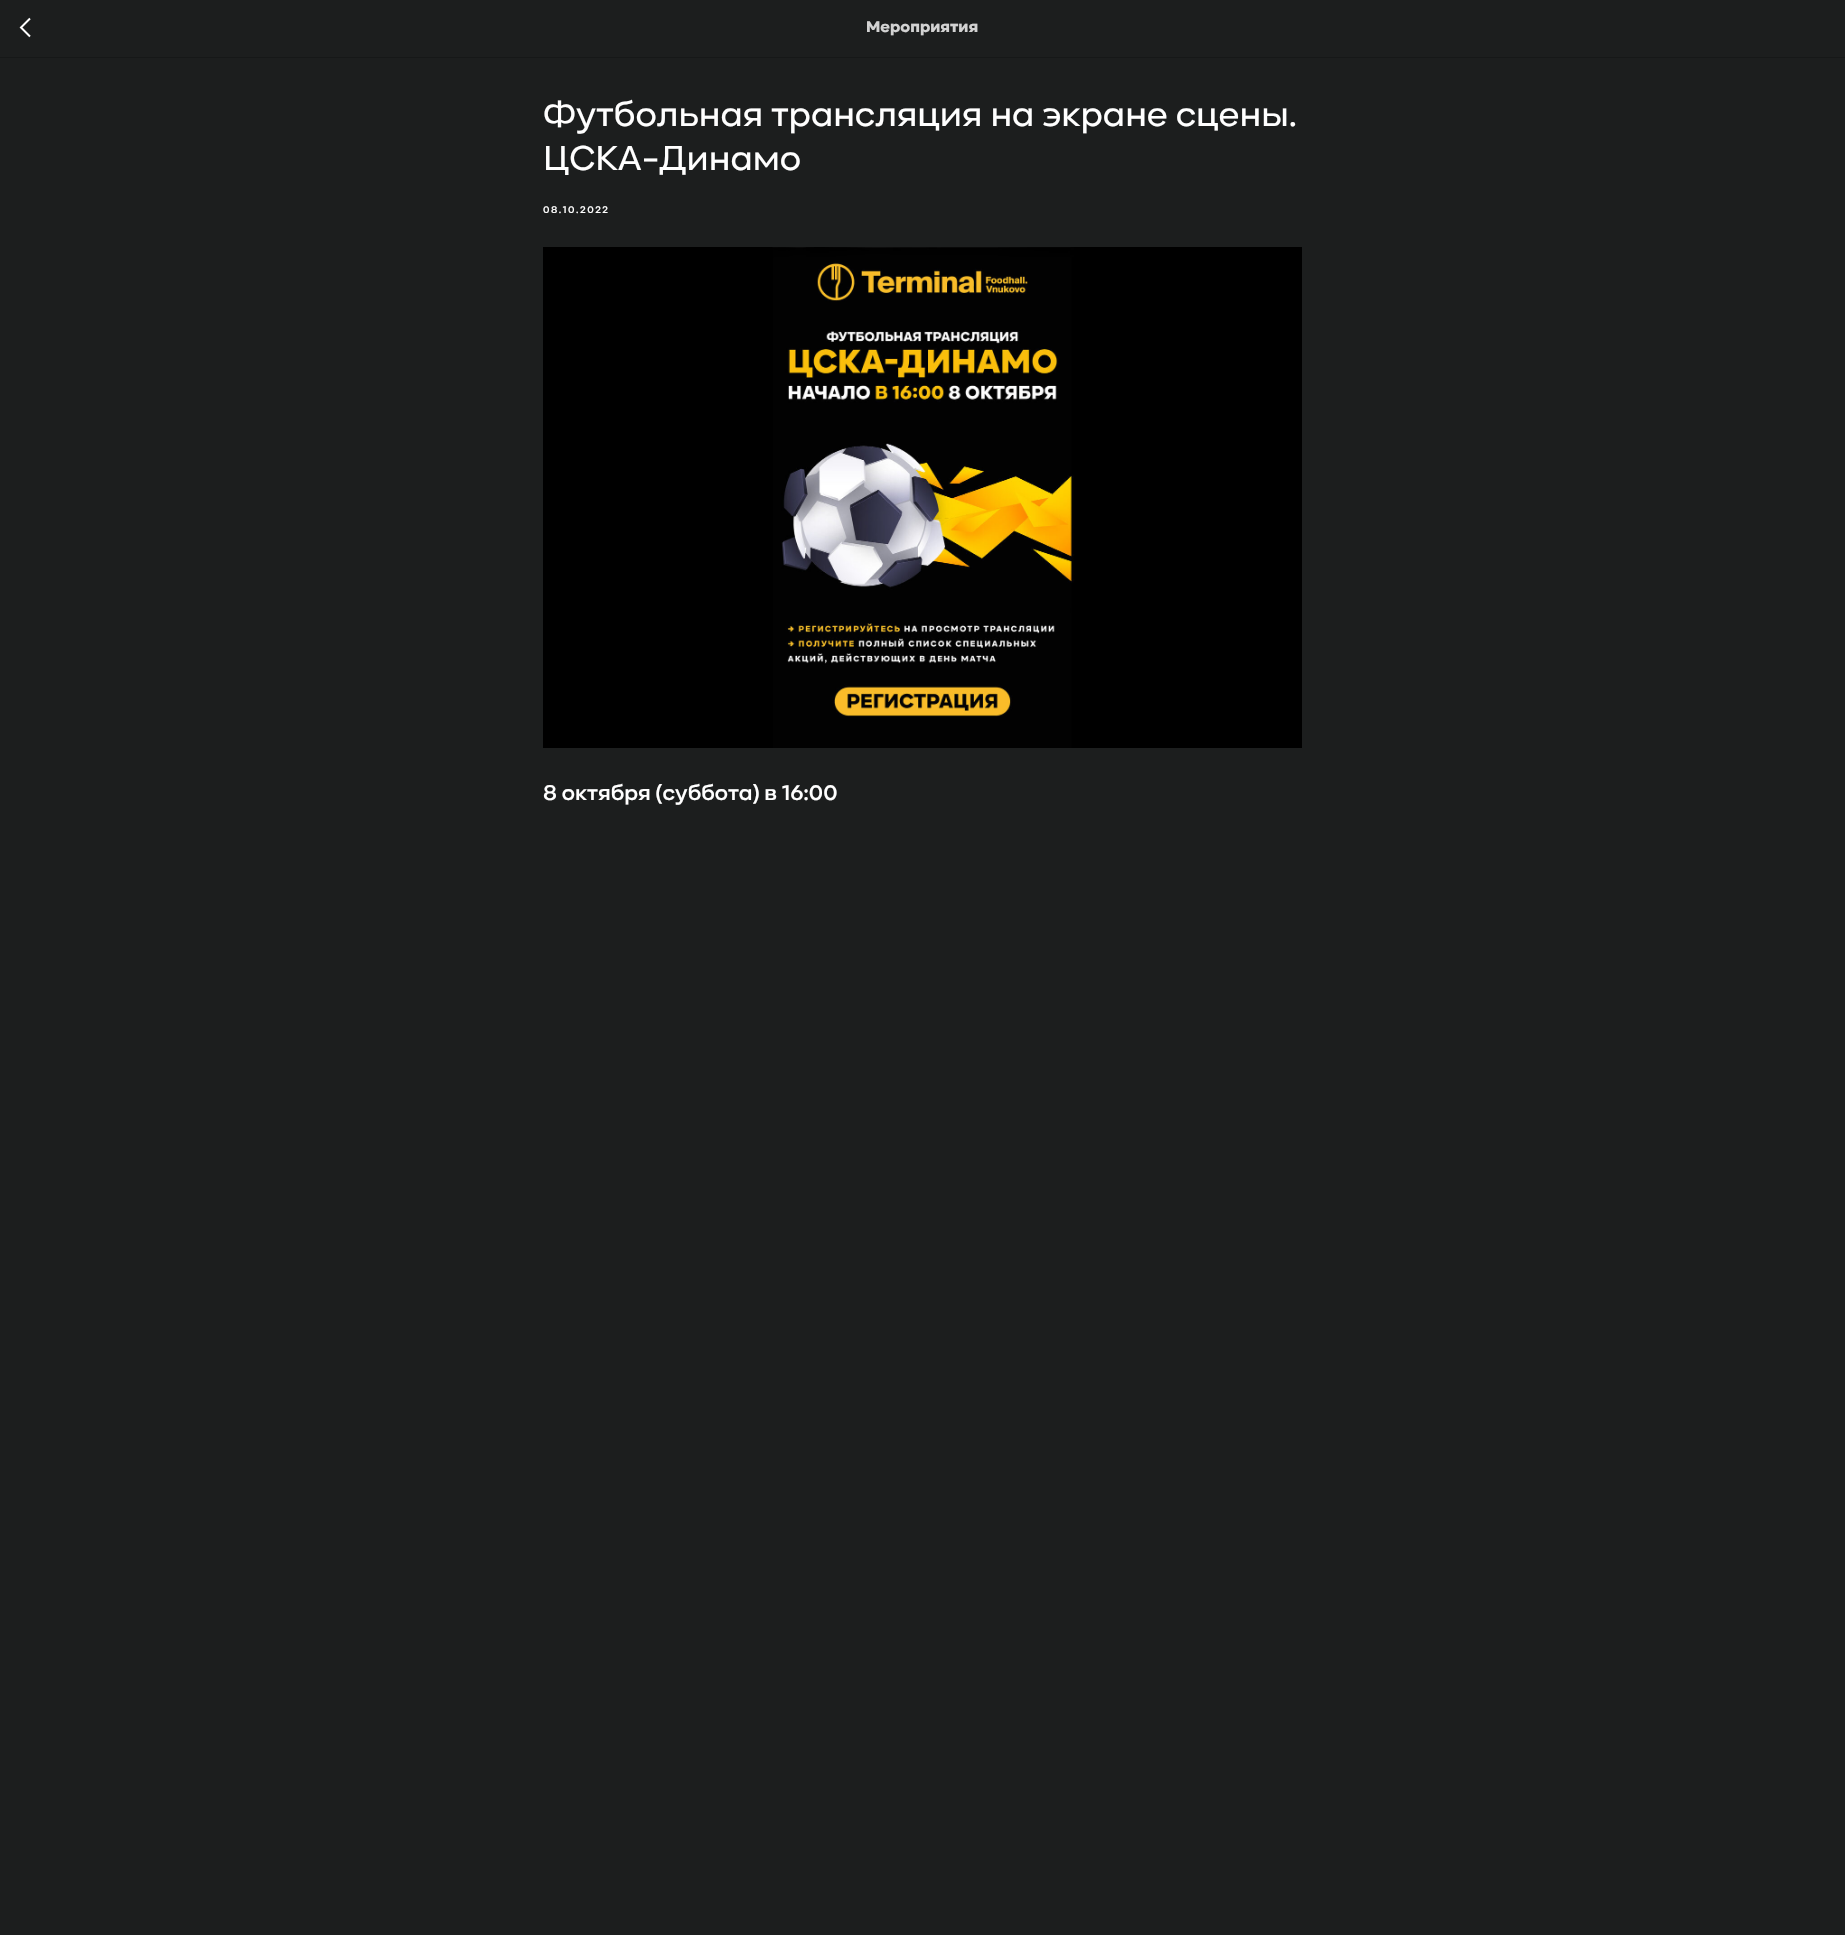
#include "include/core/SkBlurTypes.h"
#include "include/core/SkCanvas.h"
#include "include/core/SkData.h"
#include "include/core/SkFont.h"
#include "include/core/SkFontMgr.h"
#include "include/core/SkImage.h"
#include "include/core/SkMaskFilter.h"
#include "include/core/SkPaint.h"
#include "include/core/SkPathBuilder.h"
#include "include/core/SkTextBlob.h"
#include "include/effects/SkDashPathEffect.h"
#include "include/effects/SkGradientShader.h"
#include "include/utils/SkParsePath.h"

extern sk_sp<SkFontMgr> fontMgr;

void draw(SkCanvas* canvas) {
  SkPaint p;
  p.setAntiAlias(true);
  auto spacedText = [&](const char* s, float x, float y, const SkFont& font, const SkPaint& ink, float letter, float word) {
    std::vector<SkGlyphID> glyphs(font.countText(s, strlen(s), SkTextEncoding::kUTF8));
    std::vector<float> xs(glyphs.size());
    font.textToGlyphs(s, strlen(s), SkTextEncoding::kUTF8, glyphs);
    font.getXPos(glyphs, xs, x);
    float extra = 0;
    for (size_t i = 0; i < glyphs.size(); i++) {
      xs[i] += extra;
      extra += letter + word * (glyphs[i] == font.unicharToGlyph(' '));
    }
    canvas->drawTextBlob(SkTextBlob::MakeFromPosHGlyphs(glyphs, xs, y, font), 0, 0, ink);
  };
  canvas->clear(SkColorSetRGB(28, 30, 30));
  p.setColor(SkColorSetRGB(22, 24, 24));
  canvas->drawRect(SkRect::MakeLTRB(0, 57, 1845, 58), p);
  p.setStyle(SkPaint::kStroke_Style);
  p.setStrokeWidth(2);
  p.setColor(SK_ColorWHITE);
  canvas->drawPath(SkPathBuilder().moveTo(30, 36.5f).lineTo(21, 27.5f).lineTo(30, 18.5f).detach(), p);
  canvas->drawImageRect(SkImages::DeferredFromEncodedData(SkData::MakeFromFileName("images/1.png")), SkRect::MakeLTRB(543, 247, 1302, 748), SkSamplingOptions());
  SkFont font1(fontMgr->matchFamilyStyle("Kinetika", SkFontStyle(900, SkFontStyle::kNormal_Width, SkFontStyle::kUpright_Slant)), 16);
  font1.setSubpixel(true);
  p.setStyle(SkPaint::kFill_Style);
  p.setColor(SkColorSetRGB(210, 210, 210));
  canvas->drawString("Мероприятия", 866, 32, font1, p);
  SkFont font2(fontMgr->matchFamilyStyle("Kinetika", SkFontStyle(500, SkFontStyle::kNormal_Width, SkFontStyle::kUpright_Slant)), 36);
  font2.setSubpixel(true);
  p.setColor(SK_ColorWHITE);
  canvas->drawString("Футбольная трансляция на экране сцены.", 543, 126, font2, p);
  canvas->drawString("ЦСКА-Динамо", 543, 170, font2, p);
  SkFont font3(fontMgr->matchFamilyStyle("Kinetika", SkFontStyle(600, SkFontStyle::kNormal_Width, SkFontStyle::kUpright_Slant)), 10);
  font3.setSubpixel(true);
  spacedText("08.10.2022", 543, 213, font3, p, 1.5f, 0);
  SkFont font4(fontMgr->matchFamilyStyle("Kinetika", SkFontStyle(600, SkFontStyle::kNormal_Width, SkFontStyle::kUpright_Slant)), 22);
  font4.setSubpixel(true);
  canvas->drawString("8 октября (суббота) в 16:00", 543, 800, font4, p);
}
